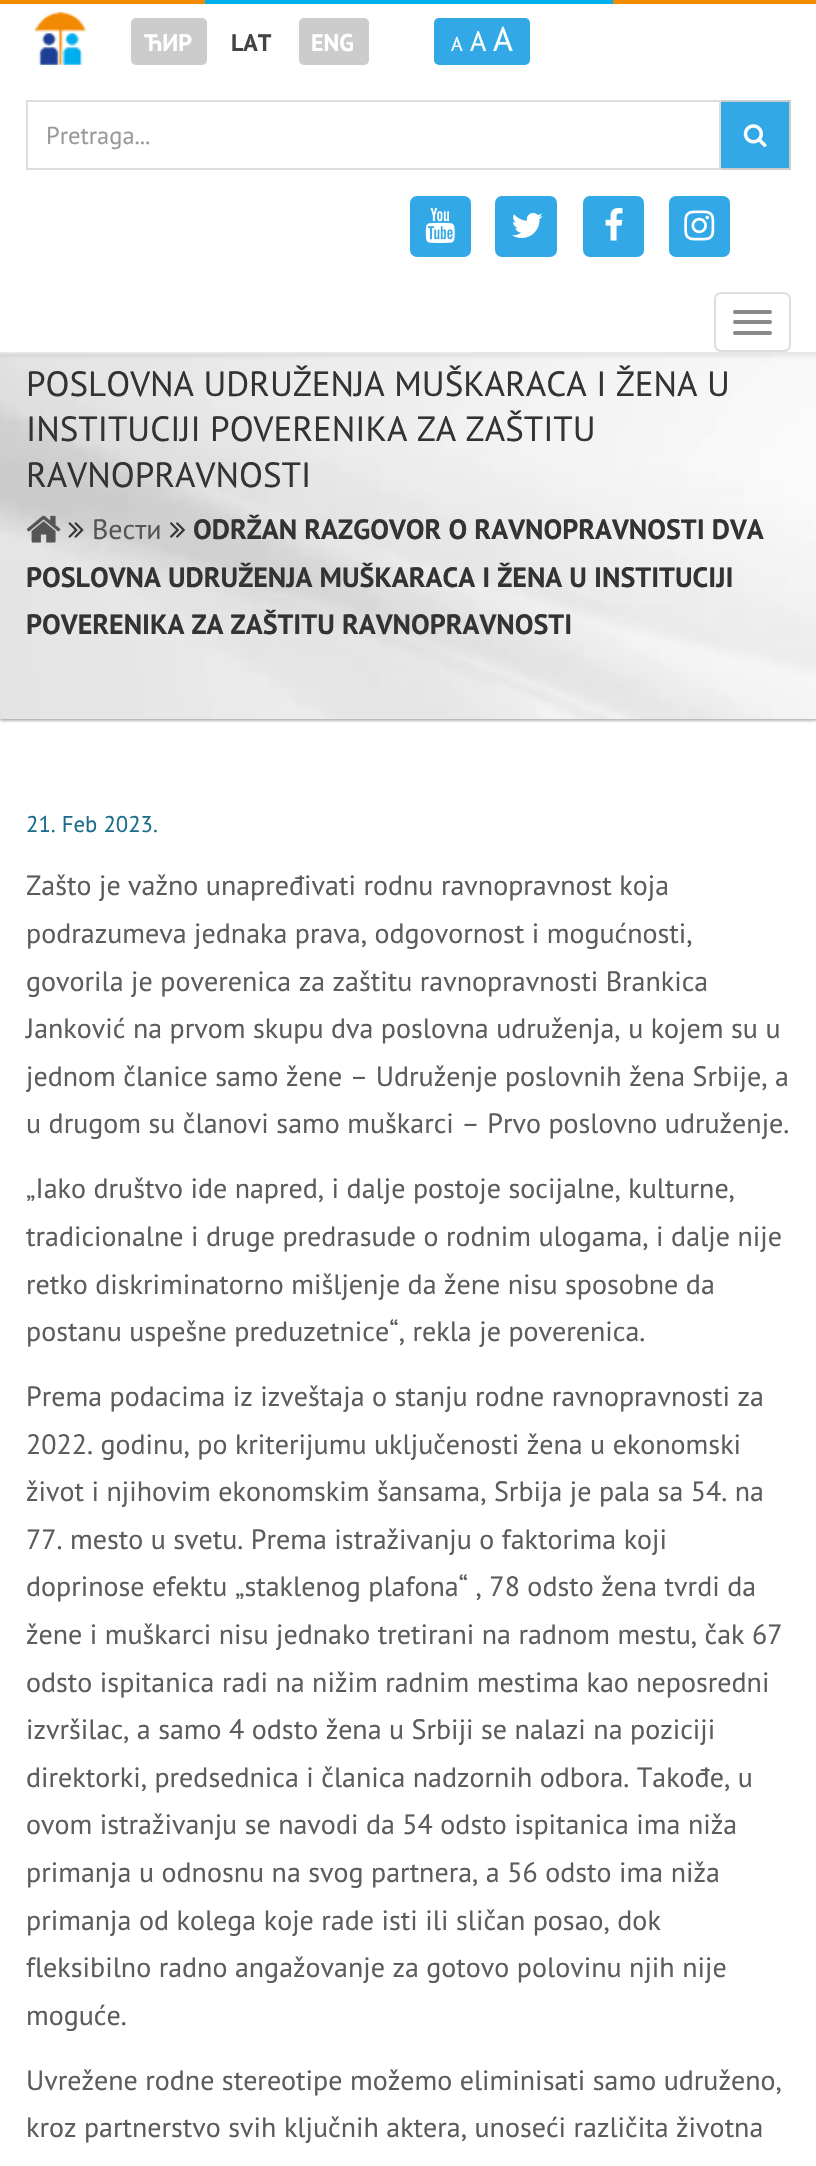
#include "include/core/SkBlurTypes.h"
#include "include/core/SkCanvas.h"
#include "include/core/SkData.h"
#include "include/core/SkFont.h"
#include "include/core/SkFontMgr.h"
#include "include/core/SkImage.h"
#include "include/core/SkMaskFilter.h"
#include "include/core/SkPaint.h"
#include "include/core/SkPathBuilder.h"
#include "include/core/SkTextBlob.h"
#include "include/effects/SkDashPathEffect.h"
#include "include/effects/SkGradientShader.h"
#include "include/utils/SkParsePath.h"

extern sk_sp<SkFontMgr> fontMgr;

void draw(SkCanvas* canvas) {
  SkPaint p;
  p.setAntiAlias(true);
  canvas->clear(SK_ColorWHITE);
  p.setColor(SkColorSetRGB(51, 51, 51));
  p.setMaskFilter(SkMaskFilter::MakeBlur(kNormal_SkBlurStyle, 2));
  canvas->drawRect(SkRect::MakeLTRB(0, 0, 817, 719), p);
  p.setMaskFilter(nullptr);
  canvas->drawImageRect(SkImages::DeferredFromEncodedData(SkData::MakeFromFileName("images/7.png")), SkRect::MakeLTRB(0, 354, 816, 720), SkSamplingOptions());
  p.setColor(SkColorSetARGB(13, 0, 0, 0));
  p.setMaskFilter(SkMaskFilter::MakeBlur(kNormal_SkBlurStyle, 1));
  canvas->drawRect(SkRect::MakeLTRB(0, 4, 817, 357), p);
  p.setMaskFilter(nullptr);
  p.setColor(SK_ColorWHITE);
  canvas->drawRect(SkRect::MakeLTRB(0, 4, 816, 352), p);
  p.setColor(SkColorSetRGB(231, 231, 231));
  canvas->drawRect(SkRect::MakeLTRB(0, 352, 816, 354), p);
  p.setColor(SkColorSetRGB(242, 139, 0));
  canvas->drawRect(SkRect::MakeLTRB(0, 0, 205, 4), p);
  p.setColor(SkColorSetRGB(0, 174, 237));
  canvas->drawRect(SkRect::MakeLTRB(205, 0, 613, 4), p);
  p.setColor(SkColorSetRGB(242, 139, 0));
  canvas->drawRect(SkRect::MakeLTRB(613, 0, 816, 4), p);
  canvas->drawImageRect(SkImages::DeferredFromEncodedData(SkData::MakeFromFileName("images/1.png")), SkRect::MakeLTRB(35, 12, 87, 65), SkSamplingOptions());
  p.setColor(SkColorSetRGB(204, 204, 204));
  canvas->drawRoundRect(SkRect::MakeLTRB(131, 18, 207, 65), 5, 5, p);
  canvas->drawRoundRect(SkRect::MakeLTRB(299, 18, 369, 65), 5, 5, p);
  p.setColor(SkColorSetRGB(50, 169, 230));
  canvas->drawRoundRect(SkRect::MakeLTRB(434, 18, 530, 65), 5, 5, p);
  p.setStyle(SkPaint::kStroke_Style);
  p.setStrokeWidth(2);
  p.setColor(SkColorSetRGB(221, 221, 221));
  canvas->drawRect(SkRect::MakeLTRB(27, 101, 720, 169), p);
  p.setStyle(SkPaint::kFill_Style);
  p.setColor(SkColorSetRGB(204, 204, 204));
  canvas->drawRect(SkRect::MakeLTRB(721, 100, 791, 102), p);
  canvas->drawRect(SkRect::MakeLTRB(789, 100, 791, 170), p);
  canvas->drawRect(SkRect::MakeLTRB(721, 168, 791, 170), p);
  p.setColor(SkColorSetRGB(50, 169, 230));
  canvas->drawRect(SkRect::MakeLTRB(721, 102, 789, 168), p);
  canvas->drawImageRect(SkImages::DeferredFromEncodedData(SkData::MakeFromFileName("images/2.png")), SkRect::MakeLTRB(743, 124, 767, 147), SkSamplingOptions());
  canvas->drawRoundRect(SkRect::MakeLTRB(410, 196, 471, 257), 7, 7, p);
  canvas->drawImageRect(SkImages::DeferredFromEncodedData(SkData::MakeFromFileName("images/3.png")), SkRect::MakeLTRB(425, 208, 455, 243), SkSamplingOptions());
  canvas->drawRoundRect(SkRect::MakeLTRB(495, 196, 557, 257), 7, 7, p);
  canvas->drawImageRect(SkImages::DeferredFromEncodedData(SkData::MakeFromFileName("images/4.png")), SkRect::MakeLTRB(512, 213, 543, 238), SkSamplingOptions());
  canvas->drawRoundRect(SkRect::MakeLTRB(583, 196, 644, 257), 7, 7, p);
  canvas->drawImageRect(SkImages::DeferredFromEncodedData(SkData::MakeFromFileName("images/5.png")), SkRect::MakeLTRB(605, 208, 623, 241), SkSamplingOptions());
  canvas->drawRoundRect(SkRect::MakeLTRB(669, 196, 730, 257), 7, 7, p);
  canvas->drawImageRect(SkImages::DeferredFromEncodedData(SkData::MakeFromFileName("images/6.png")), SkRect::MakeLTRB(684, 210, 715, 241), SkSamplingOptions());
  p.setStyle(SkPaint::kStroke_Style);
  p.setColor(SkColorSetRGB(221, 221, 221));
  canvas->drawRoundRect(SkRect::MakeLTRB(715, 293, 790, 351), 6, 6, p);
  p.setStyle(SkPaint::kFill_Style);
  p.setColor(SkColorSetRGB(136, 136, 136));
  canvas->drawRoundRect(SkRect::MakeLTRB(733, 310, 772, 314), 2, 2, p);
  canvas->drawRoundRect(SkRect::MakeLTRB(733, 320, 772, 324), 2, 2, p);
  canvas->drawRoundRect(SkRect::MakeLTRB(733, 331, 772, 335), 2, 2, p);
  canvas->drawImageRect(SkImages::DeferredFromEncodedData(SkData::MakeFromFileName("images/8.png")), SkRect::MakeLTRB(170, 522, 185, 538), SkSamplingOptions());
  canvas->drawImageRect(SkImages::DeferredFromEncodedData(SkData::MakeFromFileName("images/9.png")), SkRect::MakeLTRB(26, 515, 61, 543), SkSamplingOptions());
  canvas->drawImageRect(SkImages::DeferredFromEncodedData(SkData::MakeFromFileName("images/10.png")), SkRect::MakeLTRB(68, 522, 84, 538), SkSamplingOptions());
  SkFont font1(fontMgr->matchFamilyStyle("PT Sans", SkFontStyle::Bold()), 24);
  font1.setSubpixel(true);
  p.setColor(SK_ColorWHITE);
  canvas->drawString("ЋИР", 144, 51, font1, p);
  p.setColor(SkColorSetRGB(68, 68, 68));
  canvas->drawString("LAT", 231, 51, font1, p);
  p.setColor(SK_ColorWHITE);
  canvas->drawString("ENG", 311, 51, font1, p);
  SkFont font2(fontMgr->matchFamilyStyle("PT Sans", SkFontStyle::Normal()), 20);
  font2.setSubpixel(true);
  canvas->drawString("A", 451, 51, font2, p);
  SkFont font3(fontMgr->matchFamilyStyle("PT Sans", SkFontStyle::Normal()), 28);
  font3.setSubpixel(true);
  canvas->drawString("A", 470, 51, font3, p);
  SkFont font4(fontMgr->matchFamilyStyle("PT Sans", SkFontStyle::Normal()), 34);
  font4.setSubpixel(true);
  canvas->drawString("A", 493, 51, font4, p);
  SkFont font5(fontMgr->matchFamilyStyle("PT Sans", SkFontStyle::Normal()), 24.5f);
  font5.setSubpixel(true);
  p.setColor(SkColorSetRGB(153, 153, 153));
  canvas->drawString("Pretraga...", 46, 144, font5, p);
  SkFont font6(fontMgr->matchFamilyStyle("PT Sans", SkFontStyle::Normal()), 35);
  font6.setSubpixel(true);
  p.setColor(SkColorSetRGB(51, 51, 51));
  canvas->drawString("POSLOVNA UDRUŽENJA MUŠKARACA I ŽENA U", 26, 396, font6, p);
  canvas->drawString("INSTITUCIJI POVERENIKA ZA ZAŠTITU", 26, 441, font6, p);
  canvas->drawString("RAVNOPRAVNOSTI", 26, 487, font6, p);
  p.setColor(SkColorSetRGB(85, 85, 85));
  canvas->drawString("Вести", 92, 539, font3, p);
  SkFont font7(fontMgr->matchFamilyStyle("PT Sans", SkFontStyle::Bold()), 28);
  font7.setSubpixel(true);
  p.setColor(SkColorSetRGB(51, 51, 51));
  canvas->drawString("ODRŽAN RAZGOVOR O RAVNOPRAVNOSTI DVA", 193, 539, font7, p);
  canvas->drawString("POSLOVNA UDRUŽENJA MUŠKARACA I ŽENA U INSTITUCIJI", 26, 587, font7, p);
  canvas->drawString("POVERENIKA ZA ZAŠTITU RAVNOPRAVNOSTI", 26, 634, font7, p);
  SkFont font8(fontMgr->matchFamilyStyle("PT Sans", SkFontStyle::Normal()), 22.75f);
  font8.setSubpixel(true);
  p.setColor(SkColorSetRGB(28, 109, 140));
  canvas->drawString("21. Feb 2023.", 26, 832, font8, p);
  p.setColor(SkColorSetRGB(92, 92, 92));
  canvas->drawString("Zašto je važno unapređivati rodnu ravnopravnost koja", 26, 895, font3, p);
  canvas->drawString("podrazumeva jednaka prava, odgovornost i mogućnosti,", 26, 943, font3, p);
  canvas->drawString("govorila je poverenica za zaštitu ravnopravnosti Brankica", 26, 991, font3, p);
  canvas->drawString("Janković na prvom skupu dva poslovna udruženja, u kojem su u", 26, 1038, font3, p);
  canvas->drawString("jednom članice samo žene – Udruženje poslovnih žena Srbije, a", 26, 1086, font3, p);
  canvas->drawString("u drugom su članovi samo muškarci – Prvo poslovno udruženje.", 26, 1133, font3, p);
  canvas->drawString("„Iako društvo ide napred, i dalje postoje socijalne, kulturne,", 26, 1198, font3, p);
  canvas->drawString("tradicionalne i druge predrasude o rodnim ulogama, i dalje nije", 26, 1246, font3, p);
  canvas->drawString("retko diskriminatorno mišljenje da žene nisu sposobne da", 26, 1294, font3, p);
  canvas->drawString("postanu uspešne preduzetnice“, rekla je poverenica.", 26, 1341, font3, p);
  canvas->drawString("Prema podacima iz izveštaja o stanju rodne ravnopravnosti za", 26, 1406, font3, p);
  canvas->drawString("2022. godinu, po kriterijumu uključenosti žena u ekonomski", 26, 1454, font3, p);
  canvas->drawString("život i njihovim ekonomskim šansama, Srbija je pala sa 54. na", 26, 1501, font3, p);
  canvas->drawString("77. mesto u svetu. Prema istraživanju o faktorima koji", 26, 1549, font3, p);
  canvas->drawString("doprinose efektu „staklenog plafona“ , 78 odsto žena tvrdi da", 26, 1596, font3, p);
  canvas->drawString("žene i muškarci nisu jednako tretirani na radnom mestu, čak 67", 26, 1644, font3, p);
  canvas->drawString("odsto ispitanica radi na nižim radnim mestima kao neposredni", 26, 1692, font3, p);
  canvas->drawString("izvršilac, a samo 4 odsto žena u Srbiji se nalazi na poziciji", 26, 1739, font3, p);
  canvas->drawString("direktorki, predsednica i članica nadzornih odbora. Takođe, u", 26, 1787, font3, p);
  canvas->drawString("ovom istraživanju se navodi da 54 odsto ispitanica ima niža", 26, 1834, font3, p);
  canvas->drawString("primanja u odnosnu na svog partnera, a 56 odsto ima niža", 26, 1882, font3, p);
  canvas->drawString("primanja od kolega koje rade isti ili sličan posao, dok", 26, 1930, font3, p);
  canvas->drawString("fleksibilno radno angažovanje za gotovo polovinu njih nije", 26, 1977, font3, p);
  canvas->drawString("moguće.", 26, 2025, font3, p);
  canvas->drawString("Uvrežene rodne stereotipe možemo eliminisati samo udruženo,", 26, 2090, font3, p);
  canvas->drawString("kroz partnerstvo svih ključnih aktera, unoseći različita životna", 26, 2137, font3, p);
}
